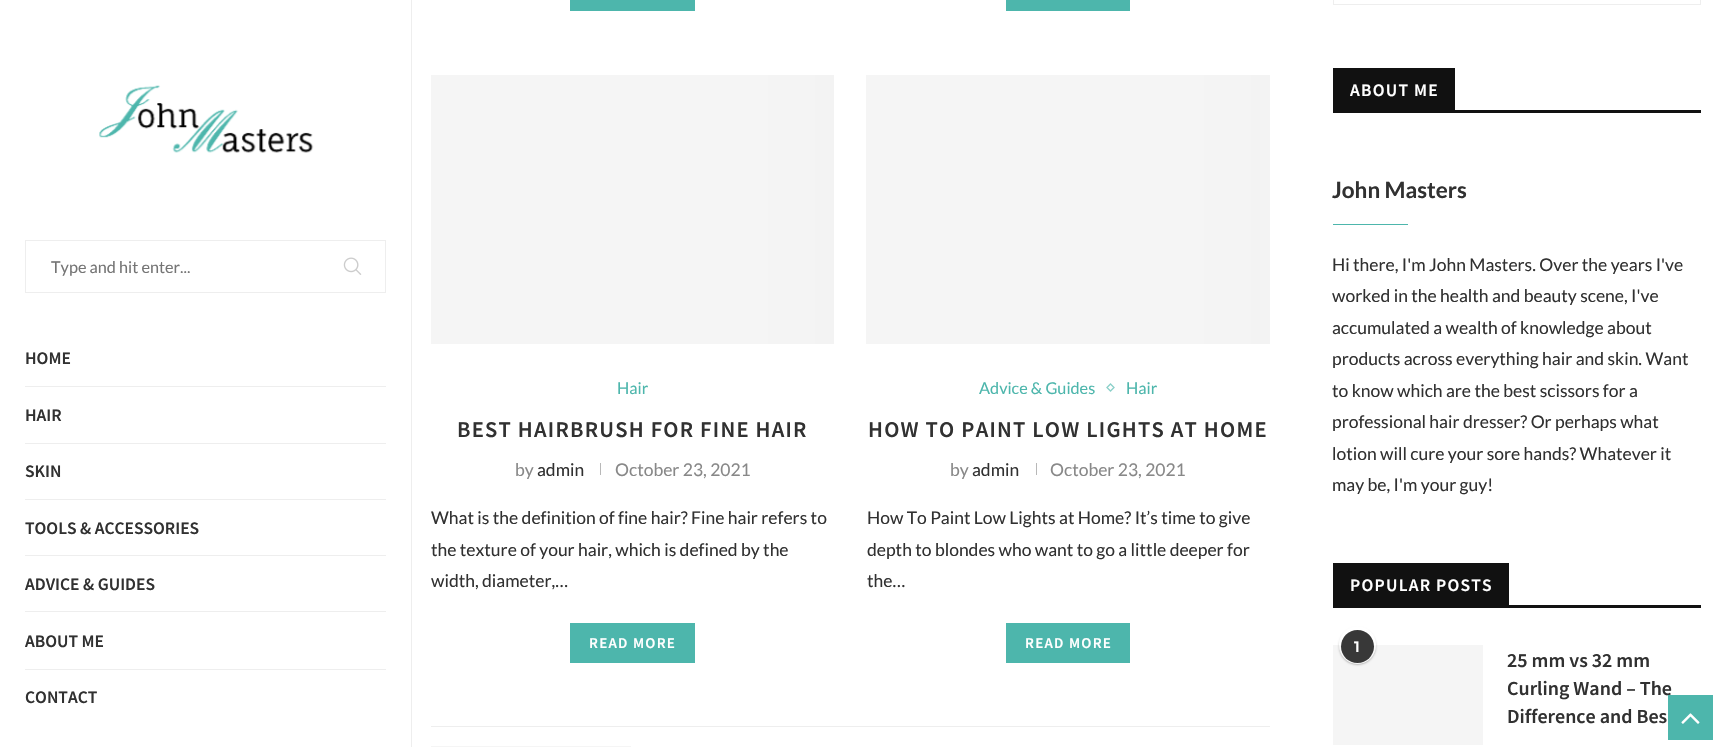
#include "include/core/SkBlurTypes.h"
#include "include/core/SkCanvas.h"
#include "include/core/SkData.h"
#include "include/core/SkFont.h"
#include "include/core/SkFontMgr.h"
#include "include/core/SkImage.h"
#include "include/core/SkMaskFilter.h"
#include "include/core/SkPaint.h"
#include "include/core/SkPathBuilder.h"
#include "include/core/SkTextBlob.h"
#include "include/effects/SkDashPathEffect.h"
#include "include/effects/SkGradientShader.h"
#include "include/utils/SkParsePath.h"

extern sk_sp<SkFontMgr> fontMgr;

void draw(SkCanvas* canvas) {
  SkPaint p;
  p.setAntiAlias(true);
  auto spacedText = [&](const char* s, float x, float y, const SkFont& font, const SkPaint& ink, float letter, float word) {
    std::vector<SkGlyphID> glyphs(font.countText(s, strlen(s), SkTextEncoding::kUTF8));
    std::vector<float> xs(glyphs.size());
    font.textToGlyphs(s, strlen(s), SkTextEncoding::kUTF8, glyphs);
    font.getXPos(glyphs, xs, x);
    float extra = 0;
    for (size_t i = 0; i < glyphs.size(); i++) {
      xs[i] += extra;
      extra += letter + word * (glyphs[i] == font.unicharToGlyph(' '));
    }
    canvas->drawTextBlob(SkTextBlob::MakeFromPosHGlyphs(glyphs, xs, y, font), 0, 0, ink);
  };
  canvas->clear(SK_ColorWHITE);
  p.setColor(SkColorSetRGB(238, 238, 238));
  canvas->drawRect(SkRect::MakeLTRB(411, 0, 412, 747), p);
  canvas->drawImageRect(SkImages::DeferredFromEncodedData(SkData::MakeFromFileName("images/1.png")), SkRect::MakeLTRB(99, 85, 314, 153), SkSamplingOptions());
  p.setStyle(SkPaint::kStroke_Style);
  p.setStrokeWidth(1);
  canvas->drawRect(SkRect::MakeLTRB(25.5f, 240.5f, 385.5f, 292.5f), p);
  canvas->drawImageRect(SkImages::DeferredFromEncodedData(SkData::MakeFromFileName("images/2.png")), SkRect::MakeLTRB(343, 257, 362, 275), SkSamplingOptions());
  p.setStyle(SkPaint::kFill_Style);
  canvas->drawRect(SkRect::MakeLTRB(25, 386, 386, 387), p);
  canvas->drawRect(SkRect::MakeLTRB(25, 443, 386, 444), p);
  canvas->drawRect(SkRect::MakeLTRB(25, 499, 386, 500), p);
  canvas->drawRect(SkRect::MakeLTRB(25, 555, 386, 556), p);
  canvas->drawRect(SkRect::MakeLTRB(25, 611, 386, 612), p);
  canvas->drawRect(SkRect::MakeLTRB(25, 669, 386, 670), p);
  p.setColor(SkColorSetRGB(77, 182, 172));
  canvas->drawRect(SkRect::MakeLTRB(570, 0, 695, 11), p);
  canvas->drawRect(SkRect::MakeLTRB(1006, 0, 1130, 11), p);
  {
    const SkColor colors[] = {SkColorSetRGB(245, 245, 245), SkColorSetRGB(239, 239, 239), SkColorSetRGB(245, 245, 245), SkColorSetRGB(245, 245, 245)};
    const float stops[] = {0, 0.15f, 0.4f, 1};
    const SkPoint ends[] = {{1195, 209}, {70, 209}};
    p.setShader(SkGradientShader::MakeLinear(ends, colors, stops, 4, SkTileMode::kClamp));
    p.setAlpha(255);
  }
  canvas->drawRect(SkRect::MakeLTRB(431, 75, 834, 344), p);
  p.setShader(nullptr);
  p.setColor(SkColorSetRGB(184, 184, 184));
  canvas->drawRect(SkRect::MakeLTRB(600, 463, 601, 475), p);
  p.setColor(SkColorSetRGB(77, 182, 172));
  canvas->drawRect(SkRect::MakeLTRB(570, 623, 695, 663), p);
  {
    const SkColor colors[] = {SkColorSetRGB(245, 245, 245), SkColorSetRGB(239, 239, 239), SkColorSetRGB(245, 245, 245), SkColorSetRGB(245, 245, 245)};
    const float stops[] = {0, 0.15f, 0.4f, 1};
    const SkPoint ends[] = {{1631, 209}, {506, 209}};
    p.setShader(SkGradientShader::MakeLinear(ends, colors, stops, 4, SkTileMode::kClamp));
    p.setAlpha(255);
  }
  canvas->drawRect(SkRect::MakeLTRB(866, 75, 1270, 344), p);
  p.setStyle(SkPaint::kStroke_Style);
  p.setStrokeWidth(1.3f);
  p.setShader(nullptr);
  p.setColor(SkColorSetRGB(139, 208, 201));
  canvas->drawPath(SkPathBuilder().moveTo(1110.5f, 384).lineTo(1114, 387.5f).lineTo(1110.5f, 391).lineTo(1107, 387.5f).close().detach(), p);
  p.setStyle(SkPaint::kFill_Style);
  p.setColor(SkColorSetRGB(184, 184, 184));
  canvas->drawRect(SkRect::MakeLTRB(1036, 463, 1037, 475), p);
  p.setColor(SkColorSetRGB(77, 182, 172));
  canvas->drawRect(SkRect::MakeLTRB(1006, 623, 1130, 663), p);
  p.setColor(SkColorSetRGB(238, 238, 238));
  canvas->drawRect(SkRect::MakeLTRB(431, 726, 1270, 727), p);
  p.setColor(SkColorSetRGB(245, 245, 245));
  canvas->drawRect(SkRect::MakeLTRB(431, 746, 631, 747), p);
  p.setStyle(SkPaint::kStroke_Style);
  p.setStrokeWidth(1);
  p.setColor(SkColorSetRGB(238, 238, 238));
  canvas->drawRect(SkRect::MakeLTRB(1333.5f, -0.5f, 1700.5f, 4.5f), p);
  p.setStyle(SkPaint::kFill_Style);
  p.setColor(SkColorSetRGB(17, 17, 17));
  canvas->drawRect(SkRect::MakeLTRB(1333, 110, 1701, 113), p);
  canvas->drawRect(SkRect::MakeLTRB(1336, 69, 1454, 110), p);
  canvas->drawRect(SkRect::MakeLTRB(1333, 68, 1455, 69), p);
  canvas->drawRect(SkRect::MakeLTRB(1454, 68, 1455, 113), p);
  canvas->drawRect(SkRect::MakeLTRB(1333, 68, 1336, 113), p);
  p.setColor(SkColorSetRGB(77, 182, 172));
  canvas->drawRect(SkRect::MakeLTRB(1333, 224, 1408, 225), p);
  p.setColor(SkColorSetRGB(17, 17, 17));
  canvas->drawRect(SkRect::MakeLTRB(1333, 605, 1701, 608), p);
  canvas->drawRect(SkRect::MakeLTRB(1336, 564, 1508, 605), p);
  canvas->drawRect(SkRect::MakeLTRB(1333, 563, 1509, 564), p);
  canvas->drawRect(SkRect::MakeLTRB(1508, 563, 1509, 608), p);
  canvas->drawRect(SkRect::MakeLTRB(1333, 563, 1336, 608), p);
  p.setColor(SkColorSetRGB(245, 245, 245));
  canvas->drawRect(SkRect::MakeLTRB(1333, 645, 1483, 745), p);
  canvas->save();
  canvas->clipPath(SkPathBuilder(SkPathFillType::kEvenOdd).moveTo(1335, 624).lineTo(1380, 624).lineTo(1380, 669).lineTo(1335, 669).close().moveTo(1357.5f, 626).cubicTo(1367.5f, 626, 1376, 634.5f, 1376, 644.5f).lineTo(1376, 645.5f).cubicTo(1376, 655.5f, 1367.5f, 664, 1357.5f, 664).cubicTo(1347.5f, 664, 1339, 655.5f, 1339, 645.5f).lineTo(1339, 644.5f).cubicTo(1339, 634.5f, 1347.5f, 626, 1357.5f, 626).close().detach(), true);
  p.setColor(SkColorSetARGB(64, 0, 0, 0));
  p.setMaskFilter(SkMaskFilter::MakeBlur(kNormal_SkBlurStyle, 1));
  canvas->drawRoundRect(SkRect::MakeLTRB(1339, 628, 1376, 665), 18.5f, 18.5f, p);
  p.setMaskFilter(nullptr);
  canvas->restore();
  p.setColor(SkColorSetARGB(77, 255, 255, 255));
  canvas->drawRoundRect(SkRect::MakeLTRB(1339, 626, 1376, 664), 18.5f, 18.5f, p);
  p.setColor(SkColorSetRGB(56, 56, 56));
  canvas->drawCircle(1357.5f, 646.5f, 16.5f, p);
  SkFont font1(fontMgr->matchFamilyStyle("Lato", SkFontStyle::Normal()), 16.25f);
  font1.setSubpixel(true);
  p.setColor(SkColorSetRGB(117, 117, 117));
  canvas->drawString("Type and hit enter...", 51, 273, font1, p);
  SkFont font2(fontMgr->matchFamilyStyle("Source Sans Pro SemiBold", SkFontStyle(600, SkFontStyle::kNormal_Width, SkFontStyle::kUpright_Slant)), 17.5f);
  font2.setSubpixel(true);
  p.setColor(SkColorSetRGB(49, 49, 49));
  canvas->drawString("HOME", 25, 364, font2, p);
  canvas->drawString("HAIR", 25, 421, font2, p);
  canvas->drawString("SKIN", 25, 477, font2, p);
  canvas->drawString("TOOLS & ACCESSORIES", 25, 534, font2, p);
  canvas->drawString("ADVICE & GUIDES", 25, 590, font2, p);
  canvas->drawString("ABOUT ME", 25, 647, font2, p);
  canvas->drawString("CONTACT", 25, 703, font2, p);
  p.setColor(SkColorSetRGB(77, 182, 172));
  canvas->drawString("Hair", 617, 394, font1, p);
  SkFont font3(fontMgr->matchFamilyStyle("Source Sans Pro SemiBold", SkFontStyle(600, SkFontStyle::kNormal_Width, SkFontStyle::kUpright_Slant)), 22.5f);
  font3.setSubpixel(true);
  p.setColor(SkColorSetRGB(49, 49, 49));
  spacedText("BEST HAIRBRUSH FOR FINE HAIR", 457, 437, font3, p, 1.25f, 0);
  SkFont font4(fontMgr->matchFamilyStyle("Lato", SkFontStyle::Normal()), 17.5f);
  font4.setSubpixel(true);
  p.setColor(SkColorSetRGB(136, 136, 136));
  canvas->drawString("by", 515, 476, font4, p);
  p.setColor(SkColorSetRGB(49, 49, 49));
  canvas->drawString("admin", 537, 476, font4, p);
  p.setColor(SkColorSetRGB(136, 136, 136));
  canvas->drawString("October 23, 2021", 615, 476, font4, p);
  p.setColor(SkColorSetRGB(49, 49, 49));
  canvas->drawString("What is the definition of fine hair? Fine hair refers to", 431, 524, font4, p);
  canvas->drawString("the texture of your hair, which is defined by the", 431, 556, font4, p);
  canvas->drawString("width, diameter,…", 431, 587, font4, p);
  SkFont font5(fontMgr->matchFamilyStyle("Source Sans Pro SemiBold", SkFontStyle(600, SkFontStyle::kNormal_Width, SkFontStyle::kUpright_Slant)), 15);
  font5.setSubpixel(true);
  p.setColor(SK_ColorWHITE);
  spacedText("READ MORE", 589, 648, font5, p, 1.25f, 0);
  p.setColor(SkColorSetRGB(77, 182, 172));
  canvas->drawString("Advice & Guides", 979, 394, font1, p);
  canvas->drawString("Hair", 1126, 394, font1, p);
  p.setColor(SkColorSetRGB(49, 49, 49));
  spacedText("HOW TO PAINT LOW LIGHTS AT HOME", 868, 437, font3, p, 1.25f, 0);
  p.setColor(SkColorSetRGB(136, 136, 136));
  canvas->drawString("by", 950, 476, font4, p);
  p.setColor(SkColorSetRGB(49, 49, 49));
  canvas->drawString("admin", 972, 476, font4, p);
  p.setColor(SkColorSetRGB(136, 136, 136));
  canvas->drawString("October 23, 2021", 1050, 476, font4, p);
  p.setColor(SkColorSetRGB(49, 49, 49));
  canvas->drawString("How To Paint Low Lights at Home? It’s time to give", 867, 524, font4, p);
  canvas->drawString("depth to blondes who want to go a little deeper for", 867, 556, font4, p);
  canvas->drawString("the…", 867, 587, font4, p);
  p.setColor(SK_ColorWHITE);
  spacedText("READ MORE", 1025, 648, font5, p, 1.25f, 0);
  spacedText("ABOUT ME", 1350, 96, font2, p, 1.25f, 0);
  SkFont font6(fontMgr->matchFamilyStyle("Lato", SkFontStyle::Bold()), 22.5f);
  font6.setSubpixel(true);
  p.setColor(SkColorSetRGB(49, 49, 49));
  canvas->drawString("John Masters", 1332, 198, font6, p);
  canvas->drawString("Hi there, I'm John Masters. Over the years I've", 1332, 271, font4, p);
  canvas->drawString("worked in the health and beauty scene, I've", 1332, 302, font4, p);
  canvas->drawString("accumulated a wealth of knowledge about", 1332, 334, font4, p);
  canvas->drawString("products across everything hair and skin. Want", 1332, 365, font4, p);
  canvas->drawString("to know which are the best scissors for a", 1332, 397, font4, p);
  canvas->drawString("professional hair dresser? Or perhaps what", 1332, 428, font4, p);
  canvas->drawString("lotion will cure your sore hands? Whatever it", 1332, 460, font4, p);
  canvas->drawString("may be, I'm your guy!", 1332, 491, font4, p);
  p.setColor(SK_ColorWHITE);
  spacedText("POPULAR POSTS", 1350, 591, font2, p, 1.25f, 0);
  SkFont font7(fontMgr->matchFamilyStyle("Montserrat", SkFontStyle(600, SkFontStyle::kNormal_Width, SkFontStyle::kUpright_Slant)), 15);
  font7.setSubpixel(true);
  canvas->drawString("1", 1354, 652, font7, p);
  SkFont font8(fontMgr->matchFamilyStyle("Source Sans Pro SemiBold", SkFontStyle(600, SkFontStyle::kNormal_Width, SkFontStyle::kUpright_Slant)), 20);
  font8.setSubpixel(true);
  p.setColor(SkColorSetRGB(49, 49, 49));
  canvas->drawString("25 mm vs 32 mm", 1507, 667, font8, p);
  canvas->drawString("Curling Wand – The", 1507, 695, font8, p);
  canvas->drawString("Difference and Bes", 1507, 723, font8, p);
  p.setColor(SkColorSetRGB(77, 182, 172));
  canvas->drawRect(SkRect::MakeLTRB(1668, 695, 1713, 740), p);
  canvas->drawImageRect(SkImages::DeferredFromEncodedData(SkData::MakeFromFileName("images/3.png")), SkRect::MakeLTRB(1681, 713, 1700, 724), SkSamplingOptions());
}
